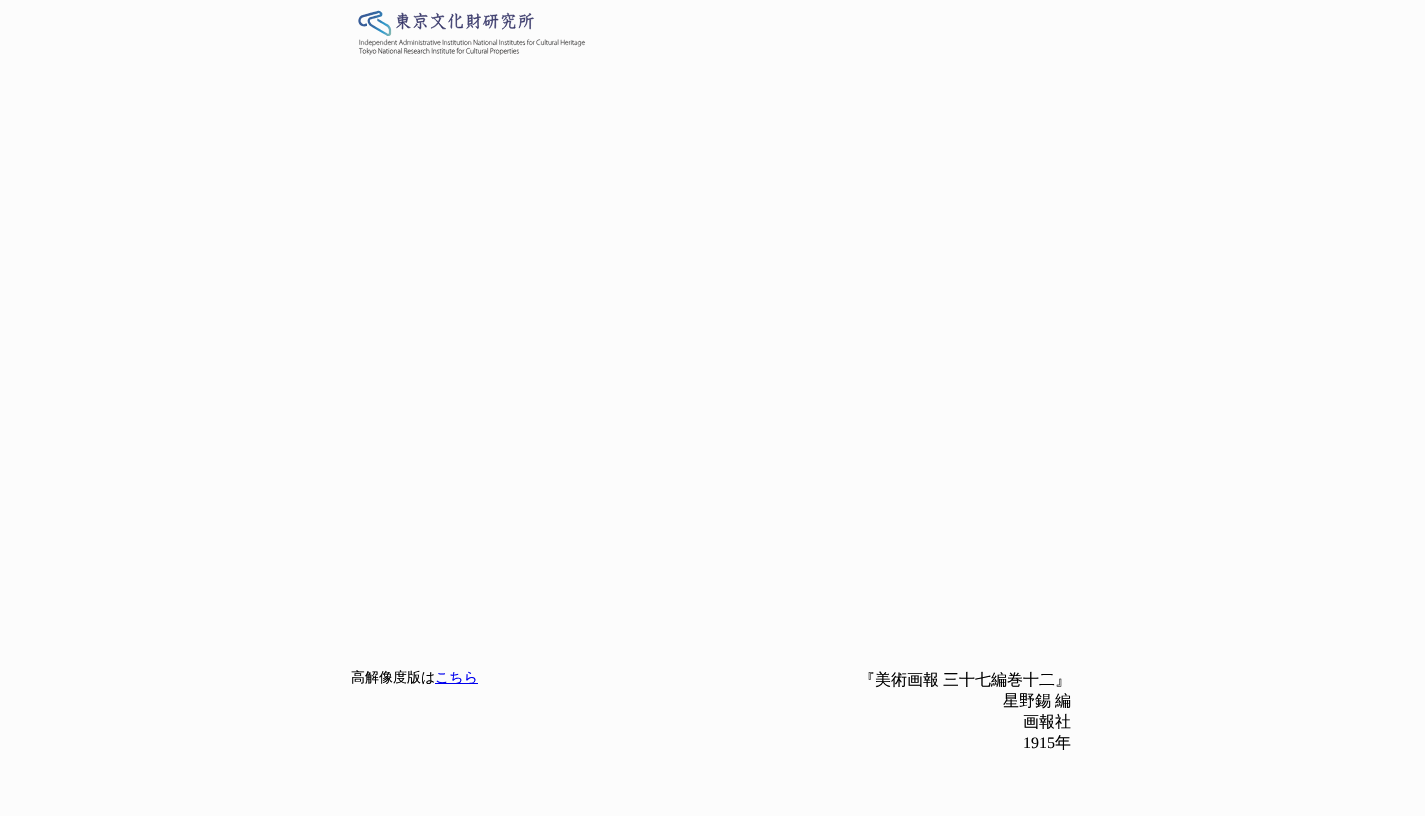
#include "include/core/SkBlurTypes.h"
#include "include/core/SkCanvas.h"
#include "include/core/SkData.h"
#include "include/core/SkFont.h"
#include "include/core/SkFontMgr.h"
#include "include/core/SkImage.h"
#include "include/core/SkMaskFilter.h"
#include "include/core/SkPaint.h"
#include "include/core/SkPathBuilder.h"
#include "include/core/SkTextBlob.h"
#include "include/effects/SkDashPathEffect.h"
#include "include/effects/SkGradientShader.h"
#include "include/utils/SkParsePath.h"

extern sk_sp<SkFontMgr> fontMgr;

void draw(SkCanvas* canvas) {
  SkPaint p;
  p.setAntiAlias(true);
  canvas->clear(SkColorSetRGB(252, 252, 252));
  canvas->drawImageRect(SkImages::DeferredFromEncodedData(SkData::MakeFromFileName("images/1.png")), SkRect::MakeLTRB(358, 10, 586, 56), SkSamplingOptions());
  p.setColor(SkColorSetRGB(0, 0, 238));
  canvas->drawRect(SkRect::MakeLTRB(435, 683, 478, 684), p);
  SkFont font1(fontMgr->matchFamilyStyle("WenQuanYi Zen Hei", SkFontStyle(500, SkFontStyle::kNormal_Width, SkFontStyle::kUpright_Slant)), 14);
  font1.setSubpixel(true);
  p.setColor(SK_ColorBLACK);
  canvas->drawString("高解像度版は", 351, 682, font1, p);
  p.setColor(SkColorSetRGB(0, 0, 238));
  canvas->drawString("こちら", 435, 682, font1, p);
  SkFont font2(fontMgr->matchFamilyStyle("WenQuanYi Zen Hei", SkFontStyle(500, SkFontStyle::kNormal_Width, SkFontStyle::kUpright_Slant)), 16);
  font2.setSubpixel(true);
  p.setColor(SK_ColorBLACK);
  canvas->drawString("『美術画報", 859, 685, font2, p);
  canvas->drawString("三十七編巻十二』", 943, 685, font2, p);
  canvas->drawString("星野錫", 1003, 706, font2, p);
  canvas->drawString("編", 1055, 706, font2, p);
  canvas->drawString("画報社", 1023, 727, font2, p);
  SkFont font3(fontMgr->matchFamilyStyle("Liberation Serif", SkFontStyle::Normal()), 16);
  font3.setSubpixel(true);
  canvas->drawString("1915", 1023, 748, font3, p);
  canvas->drawString("年", 1055, 748, font2, p);
}
